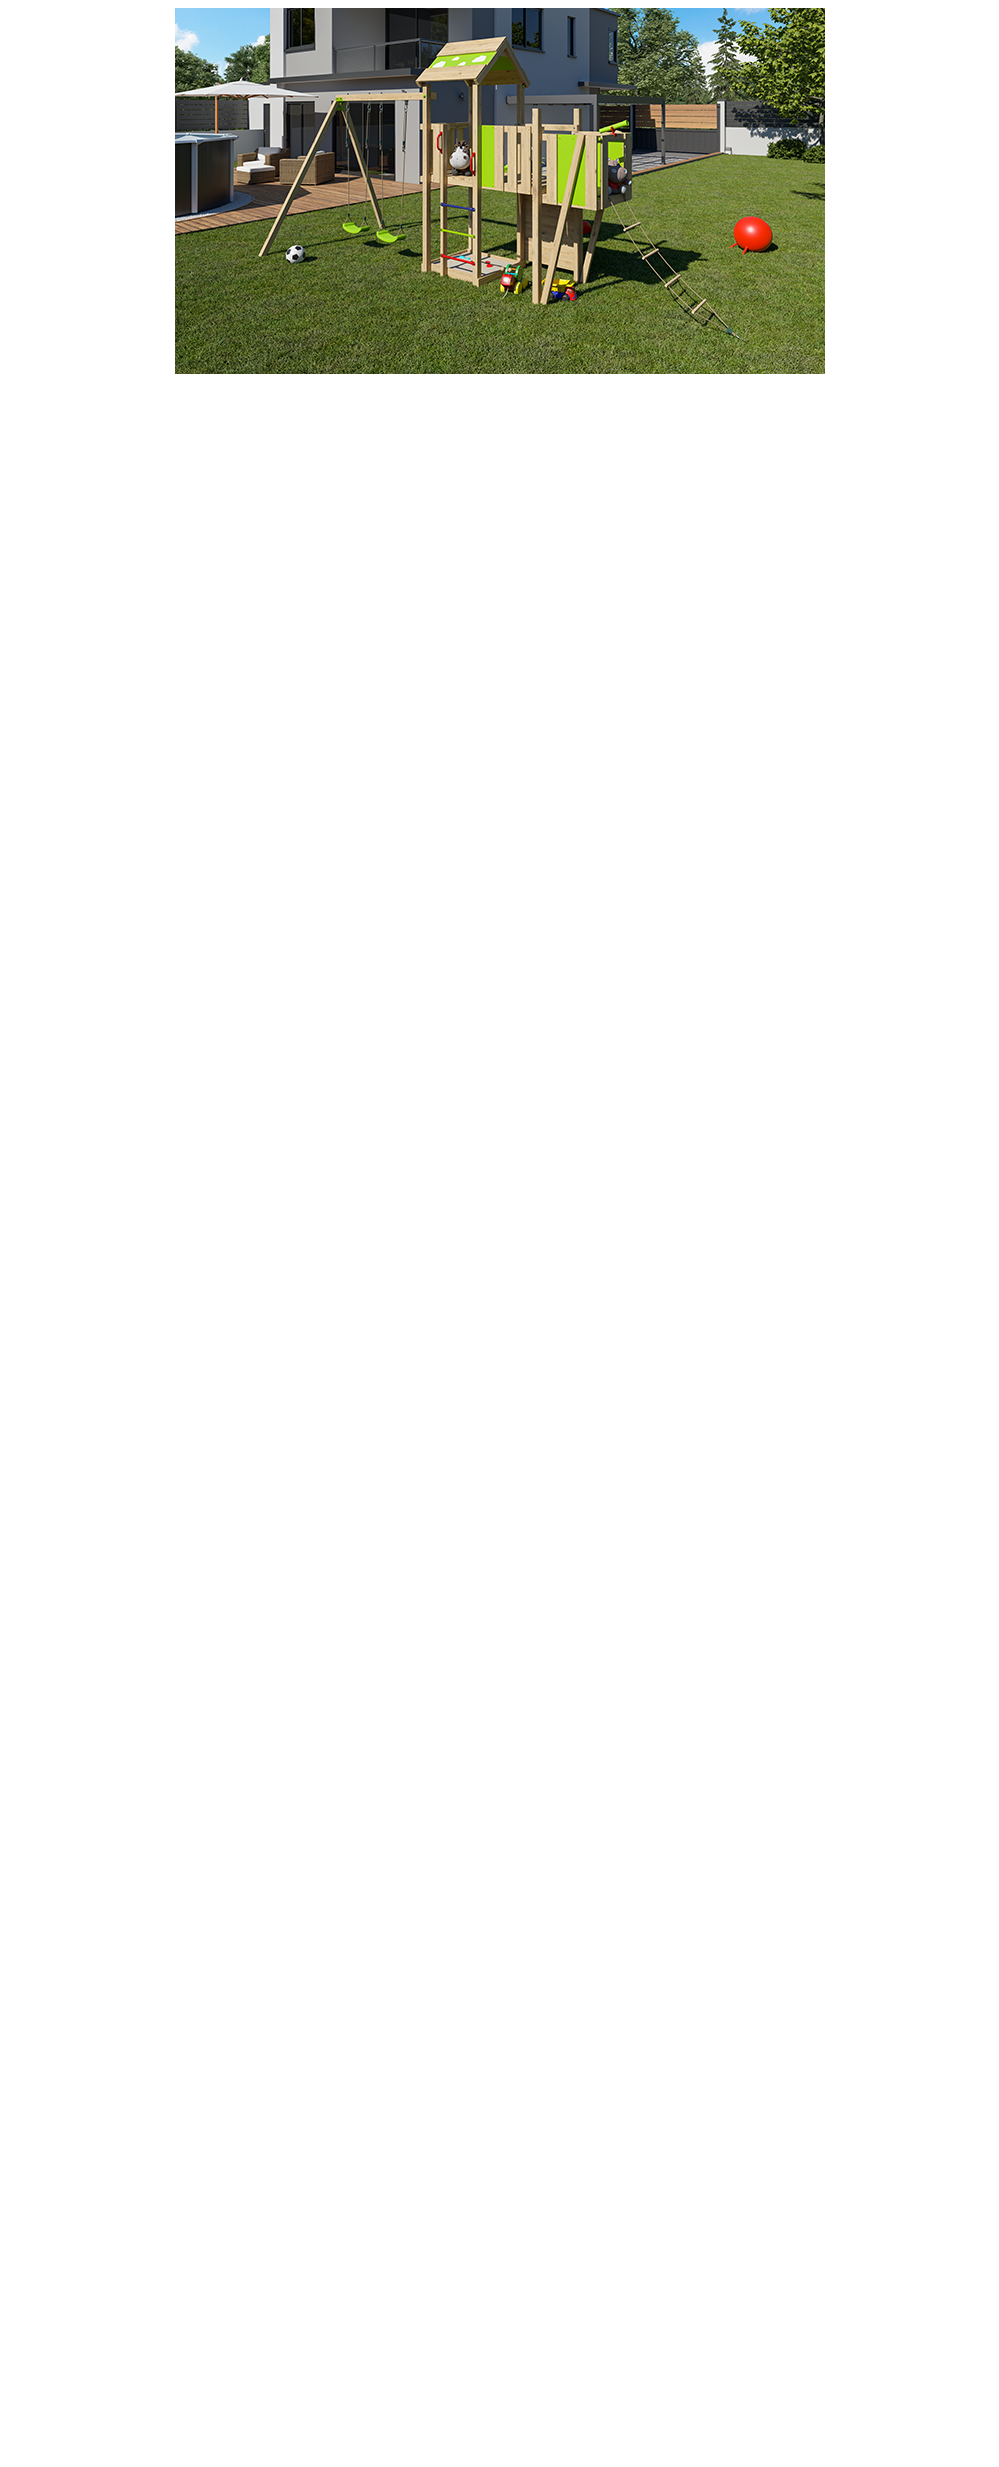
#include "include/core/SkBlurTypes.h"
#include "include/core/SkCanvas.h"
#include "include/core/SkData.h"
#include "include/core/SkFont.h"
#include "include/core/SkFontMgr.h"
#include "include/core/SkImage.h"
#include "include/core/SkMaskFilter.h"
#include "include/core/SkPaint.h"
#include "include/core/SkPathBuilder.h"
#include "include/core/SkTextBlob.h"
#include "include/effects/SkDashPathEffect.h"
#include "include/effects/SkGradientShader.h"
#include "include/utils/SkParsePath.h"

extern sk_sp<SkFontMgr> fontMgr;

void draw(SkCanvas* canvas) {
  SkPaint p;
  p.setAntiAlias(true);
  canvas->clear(SK_ColorWHITE);
  canvas->drawImageRect(SkImages::DeferredFromEncodedData(SkData::MakeFromFileName("images/1.png")), SkRect::MakeLTRB(175, 8, 825, 374), SkSamplingOptions());
}
